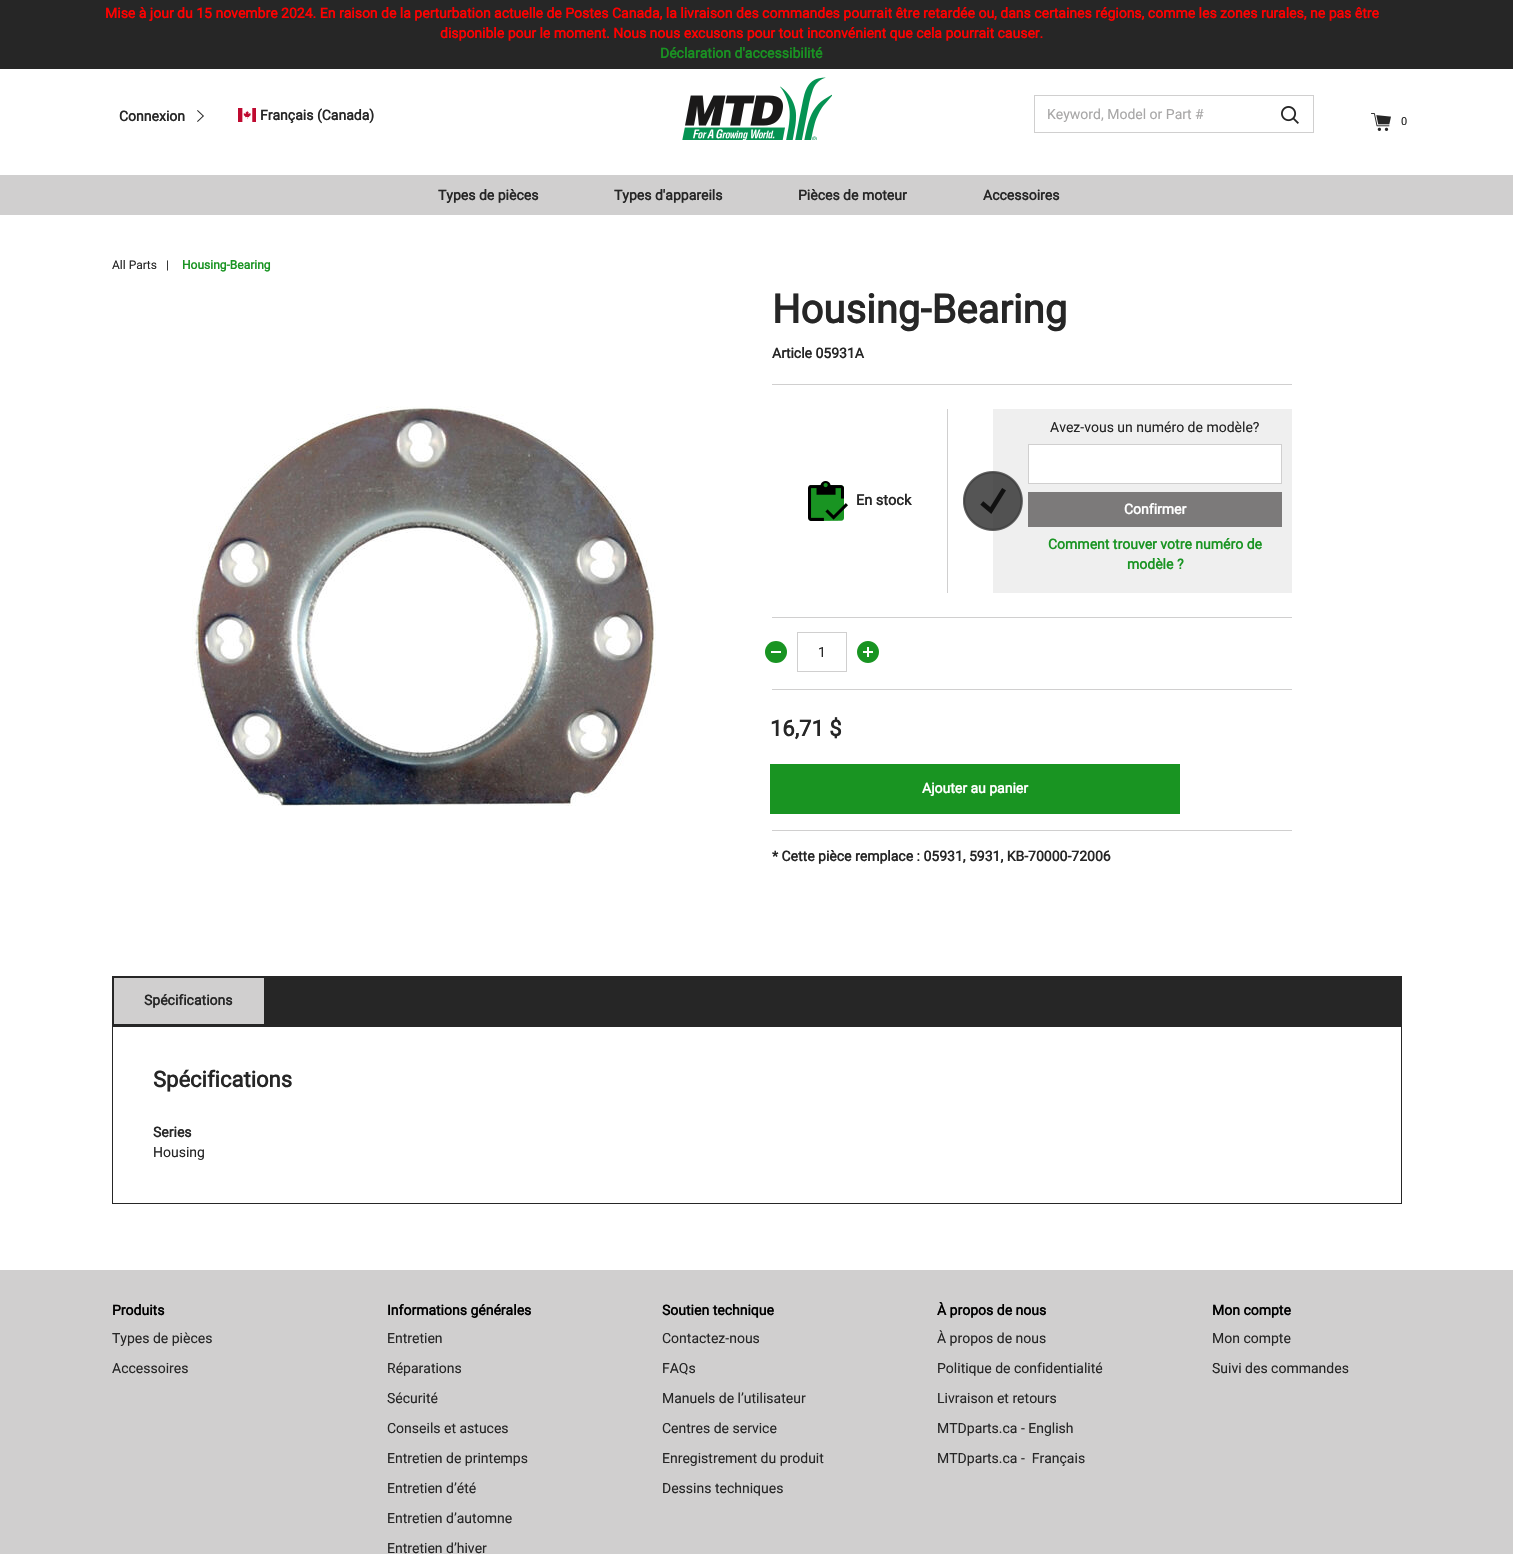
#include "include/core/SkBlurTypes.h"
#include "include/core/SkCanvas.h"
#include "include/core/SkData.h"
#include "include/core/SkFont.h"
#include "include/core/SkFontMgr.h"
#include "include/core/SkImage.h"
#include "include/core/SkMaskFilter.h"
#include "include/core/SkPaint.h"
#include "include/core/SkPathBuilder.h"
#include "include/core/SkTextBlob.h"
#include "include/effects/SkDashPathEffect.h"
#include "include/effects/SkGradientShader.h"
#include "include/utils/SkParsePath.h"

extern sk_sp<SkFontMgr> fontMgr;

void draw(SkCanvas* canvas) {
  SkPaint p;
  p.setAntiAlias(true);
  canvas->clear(SK_ColorWHITE);
  p.setColor(SkColorSetRGB(38, 38, 38));
  canvas->drawRect(SkRect::MakeLTRB(0, 0, 1513, 69), p);
  canvas->drawImageRect(SkImages::DeferredFromEncodedData(SkData::MakeFromFileName("images/1.png")), SkRect::MakeLTRB(682, 77, 832, 140), SkSamplingOptions());
  canvas->drawImageRect(SkImages::DeferredFromEncodedData(SkData::MakeFromFileName("images/2.png")), SkRect::MakeLTRB(197, 110, 204, 122), SkSamplingOptions());
  canvas->drawImageRect(SkImages::DeferredFromEncodedData(SkData::MakeFromFileName("images/3.png")), SkRect::MakeLTRB(238, 108, 256, 122), SkSamplingOptions());
  p.setStyle(SkPaint::kStroke_Style);
  p.setStrokeWidth(1);
  p.setColor(SkColorSetRGB(208, 207, 207));
  canvas->drawRect(SkRect::MakeLTRB(1034.5f, 95.5f, 1313.5f, 132.5f), p);
  canvas->drawImageRect(SkImages::DeferredFromEncodedData(SkData::MakeFromFileName("images/4.png")), SkRect::MakeLTRB(1281, 106, 1299, 124), SkSamplingOptions());
  canvas->drawImageRect(SkImages::DeferredFromEncodedData(SkData::MakeFromFileName("images/5.png")), SkRect::MakeLTRB(1371, 113, 1391, 131), SkSamplingOptions());
  p.setStyle(SkPaint::kFill_Style);
  canvas->drawRect(SkRect::MakeLTRB(0, 175, 1513, 215), p);
  canvas->drawImageRect(SkImages::DeferredFromEncodedData(SkData::MakeFromFileName("images/6.png")), SkRect::MakeLTRB(192, 406, 656, 806), SkSamplingOptions());
  canvas->drawRect(SkRect::MakeLTRB(772, 384, 1292, 385), p);
  canvas->drawRect(SkRect::MakeLTRB(772, 617, 1292, 618), p);
  canvas->drawRect(SkRect::MakeLTRB(947, 409, 948, 593), p);
  canvas->drawImageRect(SkImages::DeferredFromEncodedData(SkData::MakeFromFileName("images/7.png")), SkRect::MakeLTRB(808, 481, 848, 521), SkSamplingOptions());
  p.setColor(SkColorSetRGB(239, 239, 239));
  canvas->drawRect(SkRect::MakeLTRB(993, 409, 1292, 593), p);
  canvas->drawImageRect(SkImages::DeferredFromEncodedData(SkData::MakeFromFileName("images/8.png")), SkRect::MakeLTRB(963, 471, 1023, 531), SkSamplingOptions());
  p.setColor(SK_ColorWHITE);
  canvas->drawRect(SkRect::MakeLTRB(1028.5f, 444.5f, 1281.5f, 483.5f), p);
  p.setStyle(SkPaint::kStroke_Style);
  p.setColor(SkColorSetRGB(208, 207, 207));
  canvas->drawRect(SkRect::MakeLTRB(1028.5f, 444.5f, 1281.5f, 483.5f), p);
  p.setStyle(SkPaint::kFill_Style);
  p.setColor(SkColorSetRGB(124, 122, 122));
  canvas->drawRect(SkRect::MakeLTRB(1028, 492, 1282, 527), p);
  p.setColor(SkColorSetRGB(25, 148, 34));
  canvas->drawCircle(776, 652, 11, p);
  p.setColor(SK_ColorWHITE);
  canvas->drawRect(SkRect::MakeLTRB(771, 651, 781, 653), p);
  p.setStyle(SkPaint::kStroke_Style);
  p.setColor(SkColorSetRGB(208, 207, 207));
  canvas->drawRect(SkRect::MakeLTRB(797.5f, 632.5f, 846.5f, 671.5f), p);
  canvas->drawImageRect(SkImages::DeferredFromEncodedData(SkData::MakeFromFileName("images/9.png")), SkRect::MakeLTRB(857, 641, 879, 663), SkSamplingOptions());
  p.setStyle(SkPaint::kFill_Style);
  canvas->drawRect(SkRect::MakeLTRB(772, 689, 1292, 690), p);
  p.setColor(SkColorSetRGB(25, 148, 34));
  canvas->drawRect(SkRect::MakeLTRB(770, 764, 1180, 814), p);
  p.setColor(SkColorSetRGB(208, 207, 207));
  canvas->drawRect(SkRect::MakeLTRB(772, 830, 1292, 831), p);
  p.setColor(SkColorSetRGB(38, 38, 38));
  canvas->drawRect(SkRect::MakeLTRB(112, 976, 1402, 1026), p);
  p.setColor(SkColorSetRGB(208, 207, 207));
  canvas->drawRect(SkRect::MakeLTRB(114, 978, 264, 1024), p);
  p.setStyle(SkPaint::kStroke_Style);
  p.setColor(SkColorSetRGB(38, 38, 38));
  canvas->drawRect(SkRect::MakeLTRB(112.5f, 1026.5f, 1401.5f, 1203.5f), p);
  p.setStyle(SkPaint::kFill_Style);
  p.setColor(SkColorSetRGB(208, 207, 207));
  canvas->drawRect(SkRect::MakeLTRB(0, 1270, 1513, 1554), p);
  SkFont font1(fontMgr->matchFamilyStyle("Roboto", SkFontStyle::Bold()), 14);
  font1.setSubpixel(true);
  p.setColor(SkColorSetRGB(255, 0, 0));
  canvas->drawString("Mise à jour du 15 novembre 2024. En raison de la perturbation actuelle de Postes Canada, la livraison des commandes pourrait être retardée ou, dans certaines régions, comme les zones rurales, ne pas être", 105, 18, font1, p);
  canvas->drawString("disponible pour le moment. Nous nous excusons pour tout inconvénient que cela pourrait causer.", 440, 38, font1, p);
  p.setColor(SkColorSetRGB(25, 148, 34));
  canvas->drawString("Déclaration d'accessibilité", 660, 58, font1, p);
  p.setColor(SkColorSetRGB(38, 38, 38));
  canvas->drawString("Connexion", 119, 121, font1, p);
  canvas->drawString("Français (Canada)", 260, 120, font1, p);
  SkFont font2(fontMgr->matchFamilyStyle("Roboto", SkFontStyle::Normal()), 14);
  font2.setSubpixel(true);
  p.setColor(SkColorSetRGB(168, 167, 167));
  canvas->drawString("Keyword, Model or Part #", 1047, 119, font2, p);
  SkFont font3(fontMgr->matchFamilyStyle("Roboto", SkFontStyle::Normal()), 11);
  font3.setSubpixel(true);
  p.setColor(SkColorSetRGB(38, 38, 38));
  canvas->drawString("0", 1401, 125, font3, p);
  canvas->drawString("Types de pièces", 438, 200, font1, p);
  canvas->drawString("Types d'appareils", 614, 200, font1, p);
  canvas->drawString("Pièces de moteur", 798, 200, font1, p);
  canvas->drawString("Accessoires", 983, 200, font1, p);
  SkFont font4(fontMgr->matchFamilyStyle("Roboto", SkFontStyle::Normal()), 12);
  font4.setSubpixel(true);
  canvas->drawString("All Parts", 112, 269, font4, p);
  canvas->drawString("|", 166, 269, font4, p);
  SkFont font5(fontMgr->matchFamilyStyle("Roboto", SkFontStyle::Bold()), 12);
  font5.setSubpixel(true);
  p.setColor(SkColorSetRGB(25, 148, 34));
  canvas->drawString("Housing-Bearing", 182, 269, font5, p);
  SkFont font6(fontMgr->matchFamilyStyle("Roboto", SkFontStyle::Bold()), 40);
  font6.setSubpixel(true);
  p.setColor(SkColorSetRGB(38, 38, 38));
  canvas->drawString("Housing-Bearing", 772, 323, font6, p);
  canvas->drawString("Article 05931A", 772, 358, font1, p);
  SkFont font7(fontMgr->matchFamilyStyle("Roboto", SkFontStyle::Bold()), 14.5f);
  font7.setSubpixel(true);
  canvas->drawString("En stock", 856, 505, font7, p);
  canvas->drawString("Avez-vous un numéro de modèle?", 1050, 432, font2, p);
  p.setColor(SK_ColorWHITE);
  canvas->drawString("Confirmer", 1124, 514, font1, p);
  p.setColor(SkColorSetRGB(25, 148, 34));
  canvas->drawString("Comment trouver votre numéro de", 1048, 549, font1, p);
  canvas->drawString("modèle ?", 1127, 569, font1, p);
  p.setColor(SkColorSetRGB(38, 38, 38));
  canvas->drawString("1", 818, 657, font2, p);
  SkFont font8(fontMgr->matchFamilyStyle("Roboto", SkFontStyle::Bold()), 22);
  font8.setSubpixel(true);
  canvas->drawString("16,71 $", 770, 736, font8, p);
  p.setColor(SK_ColorWHITE);
  canvas->drawString("Ajouter au panier", 922, 793, font1, p);
  p.setColor(SkColorSetRGB(38, 38, 38));
  canvas->drawString("* Cette pièce remplace : 05931, 5931, KB-70000-72006", 772, 861, font1, p);
  canvas->drawString("Spécifications", 144, 1005, font1, p);
  canvas->drawString("Spécifications", 153, 1087, font8, p);
  canvas->drawString("Series", 153, 1137, font1, p);
  canvas->drawString("Housing", 153, 1157, font2, p);
  p.setColor(SK_ColorBLACK);
  canvas->drawString("Produits", 112, 1315, font1, p);
  p.setColor(SkColorSetRGB(38, 38, 38));
  canvas->drawString("Types de pièces", 112, 1343, font2, p);
  canvas->drawString("Accessoires", 112, 1373, font2, p);
  p.setColor(SK_ColorBLACK);
  canvas->drawString("Informations générales", 387, 1315, font1, p);
  p.setColor(SkColorSetRGB(38, 38, 38));
  canvas->drawString("Entretien", 387, 1343, font2, p);
  canvas->drawString("Réparations", 387, 1373, font2, p);
  canvas->drawString("Sécurité", 387, 1403, font2, p);
  canvas->drawString("Conseils et astuces", 387, 1433, font2, p);
  canvas->drawString("Entretien de printemps", 387, 1463, font2, p);
  canvas->drawString("Entretien d’été", 387, 1493, font2, p);
  canvas->drawString("Entretien d’automne", 387, 1523, font2, p);
  canvas->drawString("Entretien d’hiver", 387, 1553, font2, p);
  p.setColor(SK_ColorBLACK);
  canvas->drawString("Soutien technique", 662, 1315, font1, p);
  p.setColor(SkColorSetRGB(38, 38, 38));
  canvas->drawString("Contactez-nous", 662, 1343, font2, p);
  canvas->drawString("FAQs", 662, 1373, font2, p);
  canvas->drawString("Manuels de l’utilisateur", 662, 1403, font2, p);
  canvas->drawString("Centres de service", 662, 1433, font2, p);
  canvas->drawString("Enregistrement du produit", 662, 1463, font2, p);
  canvas->drawString("Dessins techniques", 662, 1493, font2, p);
  p.setColor(SK_ColorBLACK);
  canvas->drawString("À propos de nous", 937, 1315, font1, p);
  p.setColor(SkColorSetRGB(38, 38, 38));
  canvas->drawString("À propos de nous", 937, 1343, font2, p);
  canvas->drawString("Politique de confidentialité", 937, 1373, font2, p);
  canvas->drawString("Livraison et retours", 937, 1403, font2, p);
  canvas->drawString("MTDparts.ca - English", 937, 1433, font2, p);
  canvas->drawString("MTDparts.ca -  Français", 937, 1463, font2, p);
  p.setColor(SK_ColorBLACK);
  canvas->drawString("Mon compte", 1212, 1315, font1, p);
  p.setColor(SkColorSetRGB(38, 38, 38));
  canvas->drawString("Mon compte", 1212, 1343, font2, p);
  canvas->drawString("Suivi des commandes", 1212, 1373, font2, p);
}
